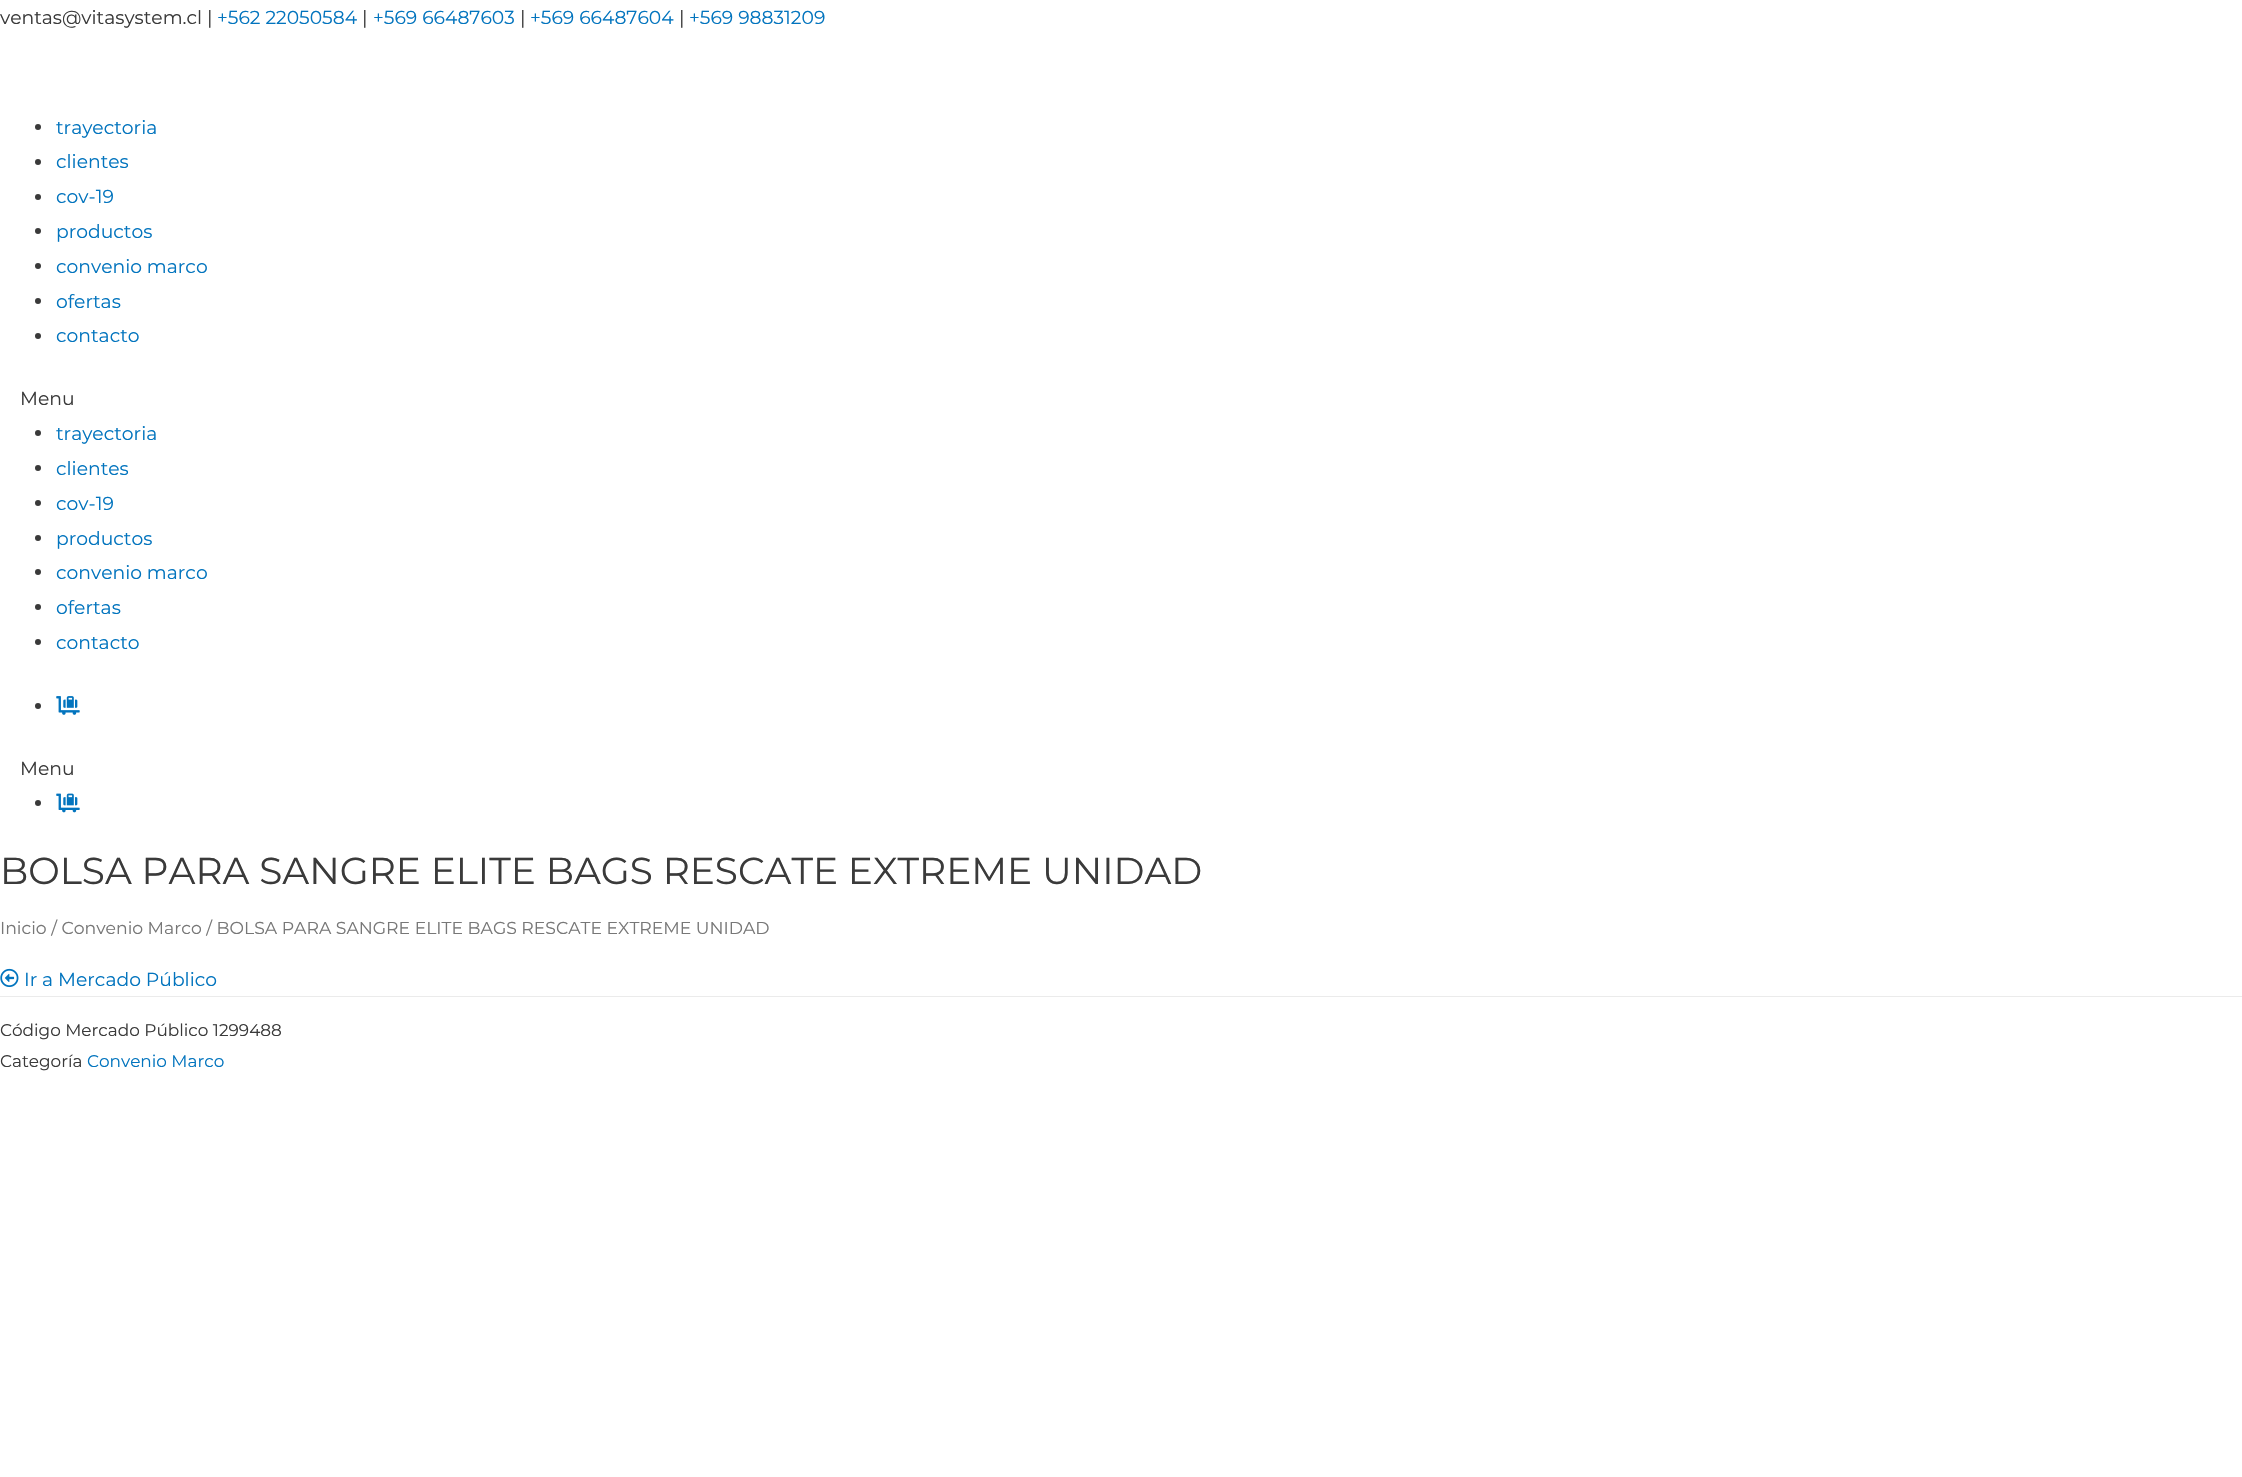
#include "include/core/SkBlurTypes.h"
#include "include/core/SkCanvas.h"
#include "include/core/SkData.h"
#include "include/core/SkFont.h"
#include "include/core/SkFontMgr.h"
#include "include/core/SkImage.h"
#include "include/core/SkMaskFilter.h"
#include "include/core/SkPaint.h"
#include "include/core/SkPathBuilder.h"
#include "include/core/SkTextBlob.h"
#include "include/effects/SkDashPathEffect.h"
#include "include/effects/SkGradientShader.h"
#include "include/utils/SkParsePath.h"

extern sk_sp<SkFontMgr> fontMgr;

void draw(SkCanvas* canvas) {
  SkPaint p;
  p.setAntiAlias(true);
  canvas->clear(SK_ColorWHITE);
  p.setColor(SkColorSetRGB(58, 58, 58));
  canvas->drawCircle(38, 127, 3, p);
  canvas->drawCircle(38, 162, 3, p);
  canvas->drawCircle(38, 197, 3, p);
  canvas->drawCircle(38, 231, 3, p);
  canvas->drawCircle(38, 266, 3, p);
  canvas->drawCircle(38, 301, 3, p);
  canvas->drawCircle(38, 336, 3, p);
  canvas->drawCircle(38, 433, 3, p);
  canvas->drawCircle(38, 468, 3, p);
  canvas->drawCircle(38, 503, 3, p);
  canvas->drawCircle(38, 538, 3, p);
  canvas->drawCircle(38, 572, 3, p);
  canvas->drawCircle(38, 607, 3, p);
  canvas->drawCircle(38, 642, 3, p);
  canvas->drawCircle(38, 706, 3, p);
  canvas->drawImageRect(SkImages::DeferredFromEncodedData(SkData::MakeFromFileName("images/1.png")), SkRect::MakeLTRB(56, 696, 80, 715), SkSamplingOptions());
  canvas->drawCircle(38, 803, 3, p);
  canvas->drawImageRect(SkImages::DeferredFromEncodedData(SkData::MakeFromFileName("images/2.png")), SkRect::MakeLTRB(56, 793, 80, 813), SkSamplingOptions());
  canvas->drawImageRect(SkImages::DeferredFromEncodedData(SkData::MakeFromFileName("images/3.png")), SkRect::MakeLTRB(0, 968, 19, 988), SkSamplingOptions());
  p.setColor(SkColorSetRGB(235, 235, 235));
  canvas->drawRect(SkRect::MakeLTRB(0, 996, 2242, 997), p);
  SkFont font1(fontMgr->matchFamilyStyle("Montserrat", SkFontStyle::Normal()), 18.75f);
  font1.setSubpixel(true);
  p.setColor(SkColorSetRGB(58, 58, 58));
  canvas->drawString("ventas@vitasystem.cl |", 0, 24, font1, p);
  p.setColor(SkColorSetRGB(2, 116, 190));
  canvas->drawString("+562 22050584", 217, 24, font1, p);
  p.setColor(SkColorSetRGB(58, 58, 58));
  canvas->drawString("|", 362, 24, font1, p);
  p.setColor(SkColorSetRGB(2, 116, 190));
  canvas->drawString("+569 66487603", 373, 24, font1, p);
  p.setColor(SkColorSetRGB(58, 58, 58));
  canvas->drawString("|", 520, 24, font1, p);
  p.setColor(SkColorSetRGB(2, 116, 190));
  canvas->drawString("+569 66487604", 530, 24, font1, p);
  p.setColor(SkColorSetRGB(58, 58, 58));
  canvas->drawString("|", 679, 24, font1, p);
  p.setColor(SkColorSetRGB(2, 116, 190));
  canvas->drawString("+569 98831209", 689, 24, font1, p);
  canvas->drawString("trayectoria", 56, 134, font1, p);
  canvas->drawString("clientes", 56, 168, font1, p);
  canvas->drawString("cov-19", 56, 203, font1, p);
  canvas->drawString("productos", 56, 238, font1, p);
  canvas->drawString("convenio marco", 56, 273, font1, p);
  canvas->drawString("ofertas", 56, 308, font1, p);
  canvas->drawString("contacto", 56, 342, font1, p);
  p.setColor(SkColorSetRGB(58, 58, 58));
  canvas->drawString("Menu", 20, 405, font1, p);
  p.setColor(SkColorSetRGB(2, 116, 190));
  canvas->drawString("trayectoria", 56, 440, font1, p);
  canvas->drawString("clientes", 56, 475, font1, p);
  canvas->drawString("cov-19", 56, 510, font1, p);
  canvas->drawString("productos", 56, 545, font1, p);
  canvas->drawString("convenio marco", 56, 579, font1, p);
  canvas->drawString("ofertas", 56, 614, font1, p);
  canvas->drawString("contacto", 56, 649, font1, p);
  p.setColor(SkColorSetRGB(58, 58, 58));
  canvas->drawString("Menu", 20, 775, font1, p);
  SkFont font2(fontMgr->matchFamilyStyle("Montserrat", SkFontStyle::Normal()), 37.5f);
  font2.setSubpixel(true);
  canvas->drawString("BOLSA PARA SANGRE ELITE BAGS RESCATE EXTREME UNIDAD", 0, 884, font2, p);
  SkFont font3(fontMgr->matchFamilyStyle("Montserrat", SkFontStyle::Normal()), 17.25f);
  font3.setSubpixel(true);
  p.setColor(SkColorSetRGB(119, 119, 119));
  canvas->drawString("Inicio / Convenio Marco / BOLSA PARA SANGRE ELITE BAGS RESCATE EXTREME UNIDAD", 0, 934, font3, p);
  p.setColor(SkColorSetRGB(2, 116, 190));
  canvas->drawString("Ir a Mercado Público", 24, 986, font1, p);
  SkFont font4(fontMgr->matchFamilyStyle("Montserrat", SkFontStyle::Normal()), 16.9f);
  font4.setSubpixel(true);
  p.setColor(SkColorSetRGB(58, 58, 58));
  canvas->drawString("Código Mercado Público 1299488", 0, 1036, font4, p);
  canvas->drawString("Categoría", 0, 1067, font4, p);
  p.setColor(SkColorSetRGB(2, 116, 190));
  canvas->drawString("Convenio Marco", 87, 1067, font4, p);
}
